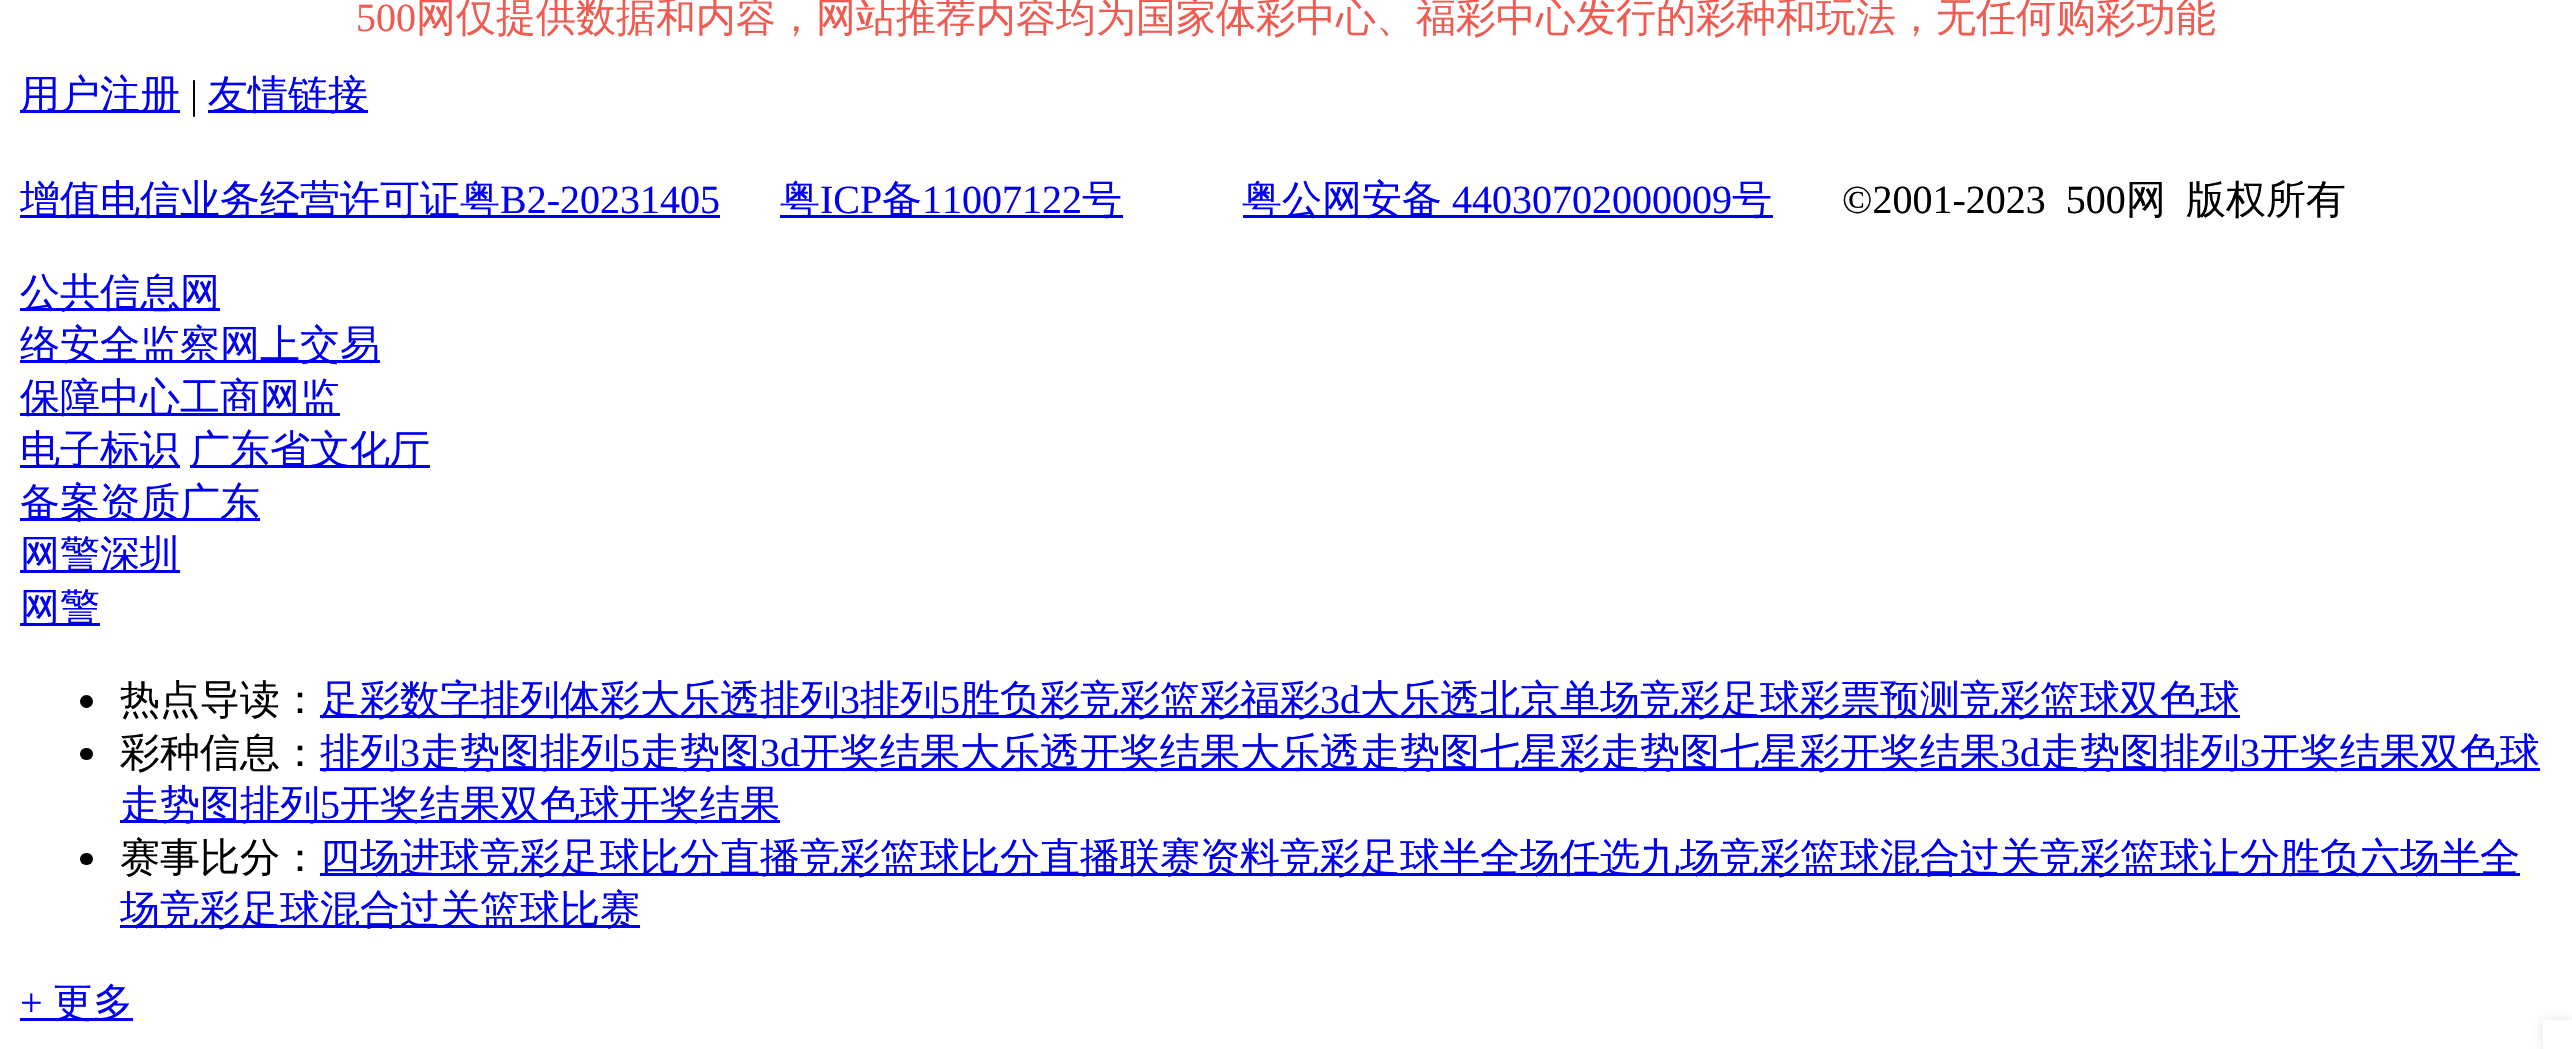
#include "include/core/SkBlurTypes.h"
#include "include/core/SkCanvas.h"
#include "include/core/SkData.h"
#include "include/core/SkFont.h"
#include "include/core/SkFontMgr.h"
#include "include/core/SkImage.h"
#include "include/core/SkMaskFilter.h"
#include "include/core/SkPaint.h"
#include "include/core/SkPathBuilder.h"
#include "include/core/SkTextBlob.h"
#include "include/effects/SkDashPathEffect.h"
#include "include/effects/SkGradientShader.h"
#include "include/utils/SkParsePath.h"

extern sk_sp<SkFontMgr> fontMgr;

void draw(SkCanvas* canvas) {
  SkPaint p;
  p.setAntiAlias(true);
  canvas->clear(SK_ColorWHITE);
  p.setColor(SkColorSetRGB(0, 0, 238));
  canvas->drawRect(SkRect::MakeLTRB(20, 110, 180, 113), p);
  canvas->drawRect(SkRect::MakeLTRB(208, 110, 368, 113), p);
  canvas->drawRect(SkRect::MakeLTRB(20, 215, 720, 218), p);
  canvas->drawRect(SkRect::MakeLTRB(780, 215, 1123, 218), p);
  canvas->drawRect(SkRect::MakeLTRB(1243, 215, 1773, 218), p);
  canvas->drawRect(SkRect::MakeLTRB(20, 308, 220, 311), p);
  canvas->drawRect(SkRect::MakeLTRB(20, 360, 380, 363), p);
  canvas->drawRect(SkRect::MakeLTRB(20, 413, 340, 416), p);
  canvas->drawRect(SkRect::MakeLTRB(20, 465, 180, 468), p);
  canvas->drawRect(SkRect::MakeLTRB(190, 465, 430, 468), p);
  canvas->drawRect(SkRect::MakeLTRB(20, 518, 260, 521), p);
  canvas->drawRect(SkRect::MakeLTRB(20, 570, 180, 573), p);
  canvas->drawRect(SkRect::MakeLTRB(20, 623, 100, 626), p);
  p.setColor(SK_ColorBLACK);
  canvas->drawCircle(86.5f, 701.5f, 6.5f, p);
  p.setColor(SkColorSetRGB(0, 0, 238));
  canvas->drawRect(SkRect::MakeLTRB(320, 715, 2240, 718), p);
  p.setColor(SK_ColorBLACK);
  canvas->drawRoundRect(SkRect::MakeLTRB(80, 748, 93, 760), 6, 6, p);
  p.setColor(SkColorSetRGB(0, 0, 238));
  canvas->drawRect(SkRect::MakeLTRB(320, 768, 2540, 771), p);
  canvas->drawRect(SkRect::MakeLTRB(120, 820, 780, 823), p);
  p.setColor(SK_ColorBLACK);
  canvas->drawRoundRect(SkRect::MakeLTRB(80, 853, 93, 865), 6, 6, p);
  p.setColor(SkColorSetRGB(0, 0, 238));
  canvas->drawRect(SkRect::MakeLTRB(320, 873, 2520, 876), p);
  canvas->drawRect(SkRect::MakeLTRB(120, 925, 640, 928), p);
  canvas->drawRect(SkRect::MakeLTRB(20, 1018, 133, 1021), p);
  canvas->save();
  canvas->clipPath(SkPathBuilder(SkPathFillType::kEvenOdd).moveTo(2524, 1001).lineTo(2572, 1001).lineTo(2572, 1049).lineTo(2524, 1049).close().moveTo(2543, 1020).lineTo(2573, 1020).lineTo(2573, 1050).lineTo(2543, 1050).close().detach(), true);
  p.setColor(SkColorSetARGB(26, 0, 0, 0));
  p.setMaskFilter(SkMaskFilter::MakeBlur(kNormal_SkBlurStyle, 6));
  canvas->drawRect(SkRect::MakeLTRB(2543, 1020, 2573, 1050), p);
  p.setMaskFilter(nullptr);
  canvas->restore();
  SkFont font1(fontMgr->matchFamilyStyle("Liberation Serif", SkFontStyle::Normal()), 40);
  font1.setSubpixel(true);
  p.setColor(SkColorSetRGB(239, 91, 81));
  canvas->drawString("500", 356, 31, font1, p);
  SkFont font2(fontMgr->matchFamilyStyle("WenQuanYi Zen Hei", SkFontStyle(500, SkFontStyle::kNormal_Width, SkFontStyle::kUpright_Slant)), 40);
  font2.setSubpixel(true);
  canvas->drawString("网仅提供数据和内容，网站推荐内容均为国家体彩中心、福彩中心发行的彩种和玩法，无任何购彩功能", 416, 31, font2, p);
  p.setColor(SkColorSetRGB(0, 0, 238));
  canvas->drawString("用户注册", 20, 108, font2, p);
  p.setColor(SK_ColorBLACK);
  canvas->drawString("|", 190, 108, font1, p);
  p.setColor(SkColorSetRGB(0, 0, 238));
  canvas->drawString("友情链接", 208, 108, font2, p);
  canvas->drawString("增值电信业务经营许可证粤", 20, 213, font2, p);
  canvas->drawString("B2-20231405", 500, 213, font1, p);
  canvas->drawString("粤", 780, 213, font2, p);
  canvas->drawString("ICP", 820, 213, font1, p);
  canvas->drawString("备", 882, 213, font2, p);
  canvas->drawString("11007122", 922, 213, font1, p);
  canvas->drawString("号", 1082, 213, font2, p);
  canvas->drawString("粤公网安备", 1242, 213, font2, p);
  canvas->drawString("44030702000009", 1452, 213, font1, p);
  canvas->drawString("号", 1732, 213, font2, p);
  p.setColor(SK_ColorBLACK);
  canvas->drawString("©2001-2023  500", 1842, 213, font1, p);
  canvas->drawString("网", 2126, 213, font2, p);
  canvas->drawString("版权所有", 2186, 213, font2, p);
  p.setColor(SkColorSetRGB(0, 0, 238));
  canvas->drawString("公共信息网", 20, 306, font2, p);
  canvas->drawString("络安全监察网上交易", 20, 358, font2, p);
  canvas->drawString("保障中心工商网监", 20, 411, font2, p);
  canvas->drawString("电子标识", 20, 463, font2, p);
  canvas->drawString("广东省文化厅", 190, 463, font2, p);
  canvas->drawString("备案资质广东", 20, 516, font2, p);
  canvas->drawString("网警深圳", 20, 568, font2, p);
  canvas->drawString("网警", 20, 621, font2, p);
  p.setColor(SK_ColorBLACK);
  canvas->drawString("热点导读：", 120, 713, font2, p);
  p.setColor(SkColorSetRGB(0, 0, 238));
  canvas->drawString("足彩数字排列体彩大乐透排列", 320, 713, font2, p);
  canvas->drawString("3", 840, 713, font1, p);
  canvas->drawString("排列", 860, 713, font2, p);
  canvas->drawString("5", 940, 713, font1, p);
  canvas->drawString("胜负彩竞彩篮彩福彩", 960, 713, font2, p);
  canvas->drawString("3d", 1320, 713, font1, p);
  canvas->drawString("大乐透北京单场竞彩足球彩票预测竞彩篮球双色球", 1360, 713, font2, p);
  p.setColor(SK_ColorBLACK);
  canvas->drawString("彩种信息：", 120, 766, font2, p);
  p.setColor(SkColorSetRGB(0, 0, 238));
  canvas->drawString("排列", 320, 766, font2, p);
  canvas->drawString("3", 400, 766, font1, p);
  canvas->drawString("走势图排列", 420, 766, font2, p);
  canvas->drawString("5", 620, 766, font1, p);
  canvas->drawString("走势图", 640, 766, font2, p);
  canvas->drawString("3d", 760, 766, font1, p);
  canvas->drawString("开奖结果大乐透开奖结果大乐透走势图七星彩走势图七星彩开奖结果", 800, 766, font2, p);
  canvas->drawString("3d", 2000, 766, font1, p);
  canvas->drawString("走势图排列", 2040, 766, font2, p);
  canvas->drawString("3", 2240, 766, font1, p);
  canvas->drawString("开奖结果双色球", 2260, 766, font2, p);
  canvas->drawString("走势图排列", 120, 818, font2, p);
  canvas->drawString("5", 320, 818, font1, p);
  canvas->drawString("开奖结果双色球开奖结果", 340, 818, font2, p);
  p.setColor(SK_ColorBLACK);
  canvas->drawString("赛事比分：", 120, 871, font2, p);
  p.setColor(SkColorSetRGB(0, 0, 238));
  canvas->drawString("四场进球竞彩足球比分直播竞彩篮球比分直播联赛资料竞彩足球半全场任选九场竞彩篮球混合过关竞彩篮球让分胜负六场半全", 320, 871, font2, p);
  canvas->drawString("场竞彩足球混合过关篮球比赛", 120, 923, font2, p);
  canvas->drawString("+", 20, 1016, font1, p);
  canvas->drawString("更多", 53, 1016, font2, p);
}
